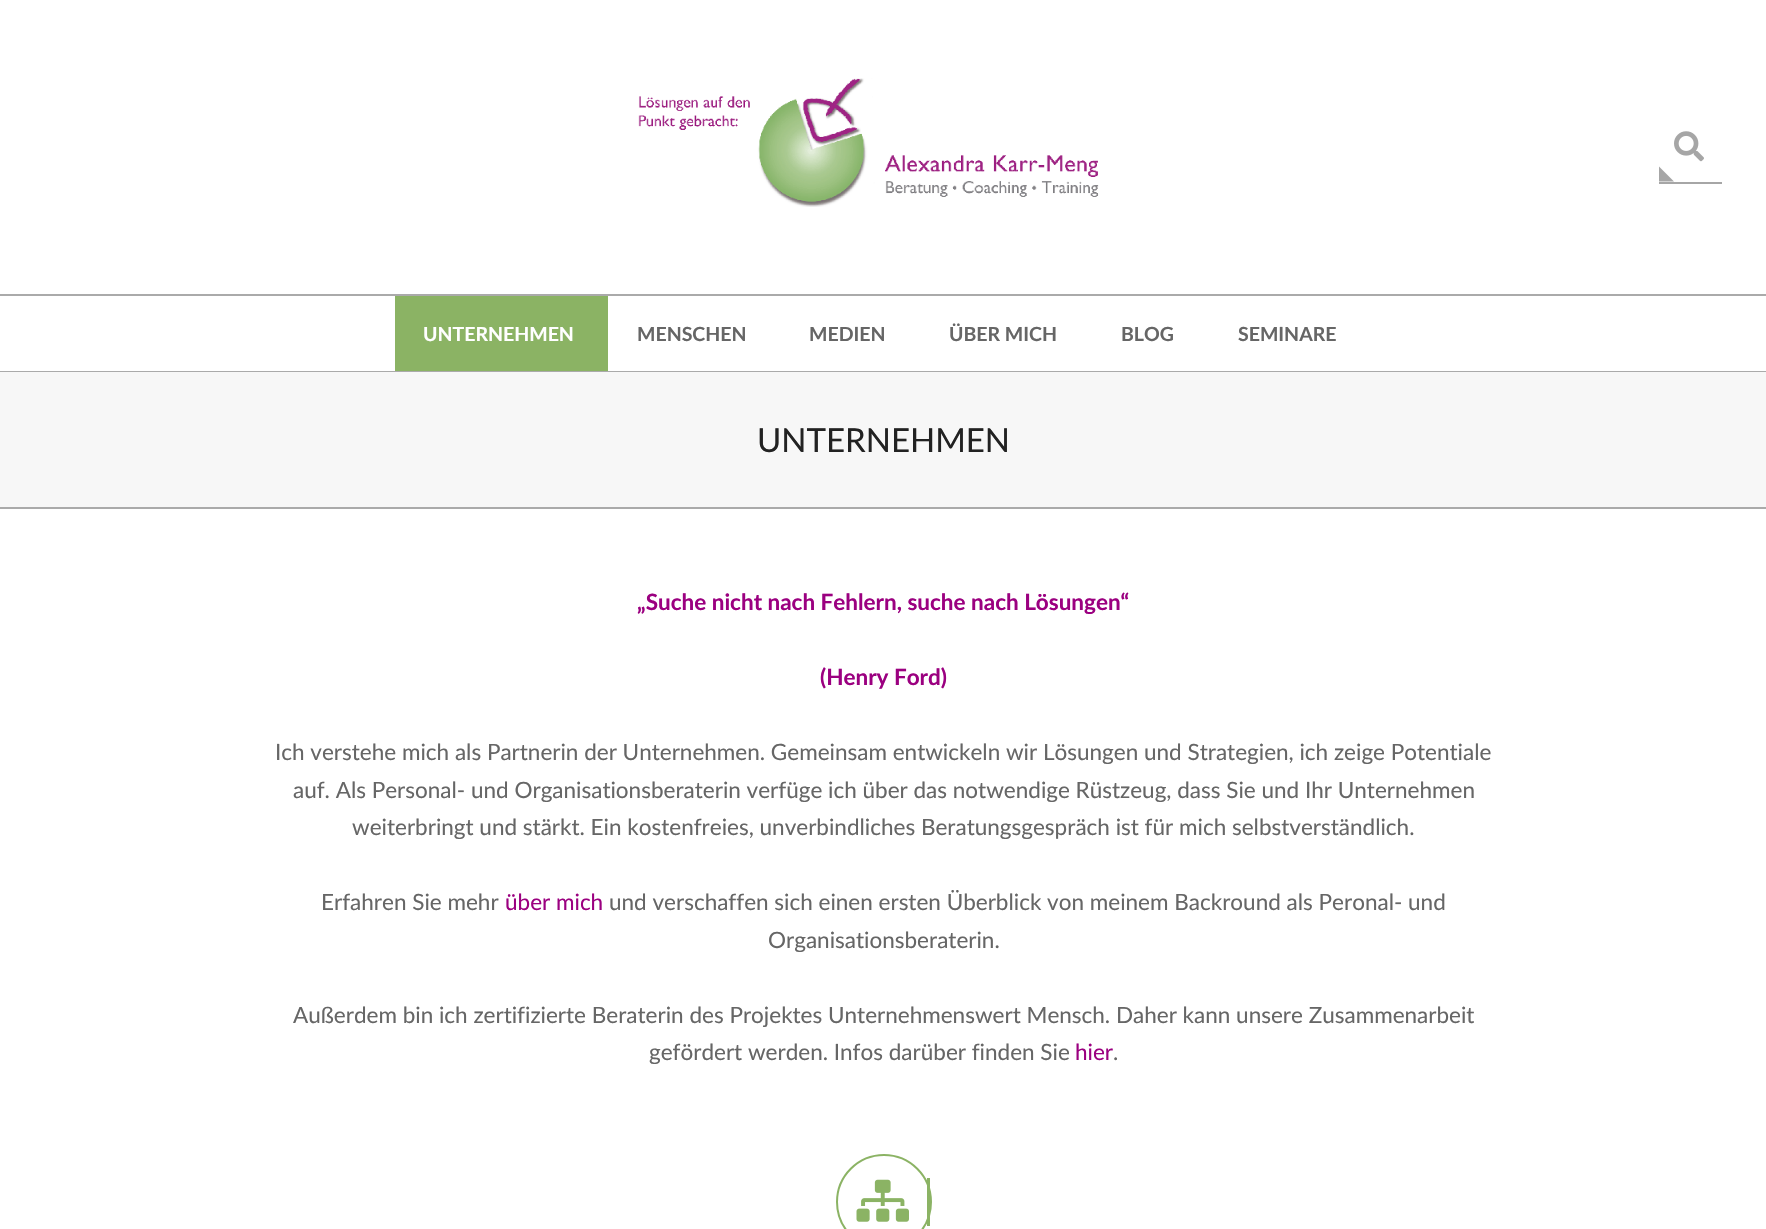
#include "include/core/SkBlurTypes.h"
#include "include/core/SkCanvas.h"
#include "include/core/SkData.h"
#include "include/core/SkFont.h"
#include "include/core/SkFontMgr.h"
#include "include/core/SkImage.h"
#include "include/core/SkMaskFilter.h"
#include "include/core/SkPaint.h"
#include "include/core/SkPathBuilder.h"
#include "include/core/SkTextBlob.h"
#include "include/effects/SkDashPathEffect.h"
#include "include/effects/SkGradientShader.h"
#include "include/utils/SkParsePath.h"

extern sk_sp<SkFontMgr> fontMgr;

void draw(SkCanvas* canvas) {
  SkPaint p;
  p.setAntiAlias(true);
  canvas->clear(SK_ColorWHITE);
  p.setColor(SkColorSetRGB(170, 170, 170));
  canvas->drawRect(SkRect::MakeLTRB(0, 294, 1766, 296), p);
  canvas->drawImageRect(SkImages::DeferredFromEncodedData(SkData::MakeFromFileName("images/1.png")), SkRect::MakeLTRB(638, 78, 1099, 207), SkSamplingOptions());
  p.setColor(SkColorSetRGB(166, 166, 166));
  canvas->drawRect(SkRect::MakeLTRB(1659, 182, 1722, 184), p);
  canvas->drawImageRect(SkImages::DeferredFromEncodedData(SkData::MakeFromFileName("images/2.png")), SkRect::MakeLTRB(1674, 131, 1704, 162), SkSamplingOptions());
  canvas->drawPath(SkPathBuilder().moveTo(1659, 181.5f).lineTo(1659, 166.5f).lineTo(1674, 181.5f).close().detach(), p);
  p.setColor(SkColorSetRGB(170, 170, 170));
  canvas->drawRect(SkRect::MakeLTRB(0, 371, 1766, 372), p);
  p.setColor(SkColorSetRGB(139, 179, 100));
  canvas->drawRect(SkRect::MakeLTRB(395, 296, 608, 371), p);
  p.setColor(SkColorSetRGB(247, 247, 247));
  canvas->drawRect(SkRect::MakeLTRB(0, 372, 1766, 507), p);
  p.setColor(SkColorSetRGB(170, 170, 170));
  canvas->drawRect(SkRect::MakeLTRB(0, 507, 1766, 509), p);
  p.setStyle(SkPaint::kStroke_Style);
  p.setStrokeWidth(2);
  p.setColor(SkColorSetRGB(139, 179, 100));
  canvas->drawCircle(884, 1202, 47, p);
  p.setStyle(SkPaint::kFill_Style);
  canvas->drawRect(SkRect::MakeLTRB(927, 1178, 930, 1226), p);
  canvas->drawImageRect(SkImages::DeferredFromEncodedData(SkData::MakeFromFileName("images/3.png")), SkRect::MakeLTRB(856, 1179, 909, 1222), SkSamplingOptions());
  SkFont font1(fontMgr->matchFamilyStyle("Lato", SkFontStyle::Bold()), 19.5f);
  font1.setSubpixel(true);
  p.setColor(SK_ColorWHITE);
  canvas->drawString("UNTERNEHMEN", 423, 341, font1, p);
  p.setColor(SkColorSetRGB(102, 102, 102));
  canvas->drawString("MENSCHEN", 637, 341, font1, p);
  canvas->drawString("MEDIEN", 809, 341, font1, p);
  canvas->drawString("ÜBER MICH", 949, 341, font1, p);
  canvas->drawString("BLOG", 1121, 341, font1, p);
  canvas->drawString("SEMINARE", 1238, 341, font1, p);
  SkFont font2(fontMgr->matchFamilyStyle("Lato", SkFontStyle::Normal()), 33);
  font2.setSubpixel(true);
  p.setColor(SkColorSetRGB(34, 34, 34));
  canvas->drawString("UNTERNEHMEN", 757, 452, font2, p);
  SkFont font3(fontMgr->matchFamilyStyle("Lato", SkFontStyle::Bold()), 22.5f);
  font3.setSubpixel(true);
  p.setColor(SkColorSetRGB(155, 0, 128));
  canvas->drawString("„Suche nicht nach Fehlern, suche nach Lösungen“", 637, 610, font3, p);
  canvas->drawString("(Henry Ford)", 820, 685, font3, p);
  SkFont font4(fontMgr->matchFamilyStyle("Lato", SkFontStyle::Normal()), 22.5f);
  font4.setSubpixel(true);
  p.setColor(SkColorSetRGB(102, 102, 102));
  canvas->drawString("Ich verstehe mich als Partnerin der Unternehmen. Gemeinsam entwickeln wir Lösungen und Strategien, ich zeige Potentiale", 275, 760, font4, p);
  canvas->drawString("auf. Als Personal- und Organisationsberaterin verfüge ich über das notwendige Rüstzeug, dass Sie und Ihr Unternehmen", 293, 798, font4, p);
  canvas->drawString("weiterbringt und stärkt. Ein kostenfreies, unverbindliches Beratungsgespräch ist für mich selbstverständlich.", 352, 835, font4, p);
  canvas->drawString("Erfahren Sie mehr", 321, 910, font4, p);
  p.setColor(SkColorSetRGB(155, 0, 128));
  canvas->drawString("über mich", 505, 910, font4, p);
  p.setColor(SkColorSetRGB(102, 102, 102));
  canvas->drawString("und verschaffen sich einen ersten Überblick von meinem Backround als Peronal- und", 609, 910, font4, p);
  canvas->drawString("Organisationsberaterin.", 768, 948, font4, p);
  canvas->drawString("Außerdem bin ich zertifizierte Beraterin des Projektes Unternehmenswert Mensch. Daher kann unsere Zusammenarbeit", 293, 1023, font4, p);
  canvas->drawString("gefördert werden. Infos darüber finden Sie", 649, 1060, font4, p);
  p.setColor(SkColorSetRGB(155, 0, 128));
  canvas->drawString("hier", 1075, 1060, font4, p);
  p.setColor(SkColorSetRGB(102, 102, 102));
  canvas->drawString(".", 1113, 1060, font4, p);
}
